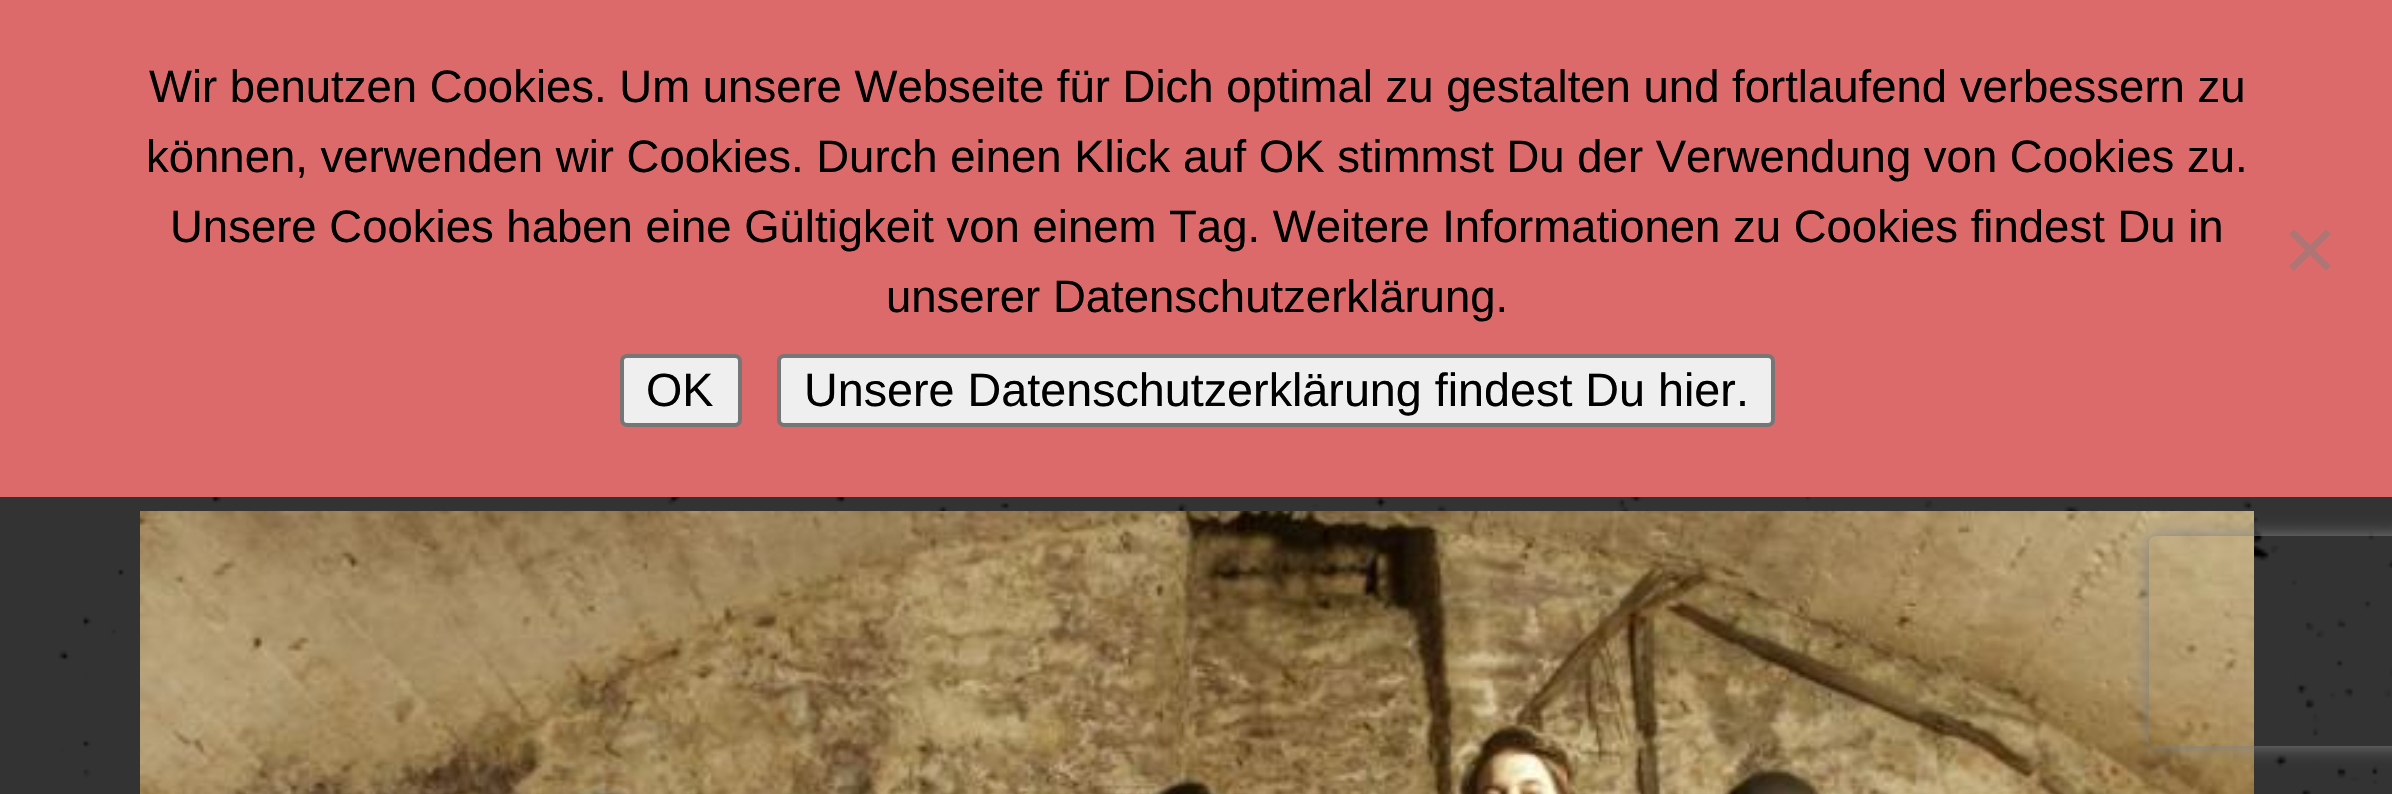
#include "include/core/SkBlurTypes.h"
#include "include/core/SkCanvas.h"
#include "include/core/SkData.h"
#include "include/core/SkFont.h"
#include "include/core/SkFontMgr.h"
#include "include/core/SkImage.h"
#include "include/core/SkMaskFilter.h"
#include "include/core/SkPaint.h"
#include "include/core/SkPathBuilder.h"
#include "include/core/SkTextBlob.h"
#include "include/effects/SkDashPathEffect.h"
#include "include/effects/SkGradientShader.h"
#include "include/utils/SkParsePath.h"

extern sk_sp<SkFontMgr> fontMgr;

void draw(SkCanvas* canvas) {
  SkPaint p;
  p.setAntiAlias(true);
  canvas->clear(SkColorSetRGB(51, 51, 51));
  p.setColor(SkColorSetRGB(221, 106, 106));
  canvas->drawRect(SkRect::MakeLTRB(0, 0, 2392, 497), p);
  p.setColor(SkColorSetRGB(175, 117, 117));
  canvas->drawPath(SkPathBuilder().moveTo(2326, 229).lineTo(2331, 234).lineTo(2294, 271).lineTo(2289, 266).close().detach(), p);
  canvas->drawPath(SkPathBuilder().moveTo(2289, 234).lineTo(2294, 229).lineTo(2331, 266).lineTo(2326, 271).close().detach(), p);
  p.setColor(SkColorSetRGB(239, 239, 239));
  canvas->drawRoundRect(SkRect::MakeLTRB(622, 356, 740, 425), 5, 5, p);
  p.setStyle(SkPaint::kStroke_Style);
  p.setStrokeWidth(4);
  p.setColor(SkColorSetRGB(118, 118, 118));
  canvas->drawRoundRect(SkRect::MakeLTRB(622, 356, 740, 425), 5, 5, p);
  p.setStyle(SkPaint::kFill_Style);
  p.setColor(SkColorSetRGB(239, 239, 239));
  canvas->drawRoundRect(SkRect::MakeLTRB(779, 356, 1773, 425), 5, 5, p);
  p.setStyle(SkPaint::kStroke_Style);
  p.setColor(SkColorSetRGB(118, 118, 118));
  canvas->drawRoundRect(SkRect::MakeLTRB(779, 356, 1773, 425), 5, 5, p);
  canvas->drawImageRect(SkImages::DeferredFromEncodedData(SkData::MakeFromFileName("images/1.png")), SkRect::MakeLTRB(58, 497, 2392, 794), SkSamplingOptions());
  canvas->drawImageRect(SkImages::DeferredFromEncodedData(SkData::MakeFromFileName("images/2.png")), SkRect::MakeLTRB(140, 511, 2254, 794), SkSamplingOptions());
  canvas->save();
  canvas->clipPath(SkPathBuilder(SkPathFillType::kEvenOdd).moveTo(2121, 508).lineTo(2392, 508).lineTo(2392, 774).lineTo(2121, 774).close().moveTo(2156, 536).lineTo(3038, 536).cubicTo(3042, 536, 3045, 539, 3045, 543).lineTo(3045, 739).cubicTo(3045, 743, 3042, 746, 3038, 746).lineTo(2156, 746).cubicTo(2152, 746, 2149, 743, 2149, 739).lineTo(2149, 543).cubicTo(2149, 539, 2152, 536, 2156, 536).close().detach(), true);
  p.setStyle(SkPaint::kFill_Style);
  p.setColor(SkColorSetRGB(128, 128, 128));
  p.setMaskFilter(SkMaskFilter::MakeBlur(kNormal_SkBlurStyle, 9));
  canvas->drawRoundRect(SkRect::MakeLTRB(2149, 536, 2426, 746), 7, 7, p);
  p.setMaskFilter(nullptr);
  canvas->restore();
  SkFont font1(fontMgr->matchFamilyStyle("Liberation Sans", SkFontStyle::Normal()), 45.5f);
  font1.setSubpixel(true);
  p.setColor(SK_ColorBLACK);
  canvas->drawString("Wir benutzen Cookies. Um unsere Webseite für Dich optimal zu gestalten und fortlaufend verbessern zu", 149, 102, font1, p);
  canvas->drawString("können, verwenden wir Cookies. Durch einen Klick auf OK stimmst Du der Verwendung von Cookies zu.", 146, 172, font1, p);
  canvas->drawString("Unsere Cookies haben eine Gültigkeit von einem Tag. Weitere Informationen zu Cookies findest Du in", 170, 242, font1, p);
  canvas->drawString("unserer Datenschutzerklärung.", 886, 312, font1, p);
  SkFont font2(fontMgr->matchFamilyStyle("Liberation Sans", SkFontStyle::Normal()), 46.7f);
  font2.setSubpixel(true);
  canvas->drawString("OK", 646, 406, font2, p);
  canvas->drawString("Unsere Datenschutzerklärung findest Du hier.", 804, 406, font2, p);
}
